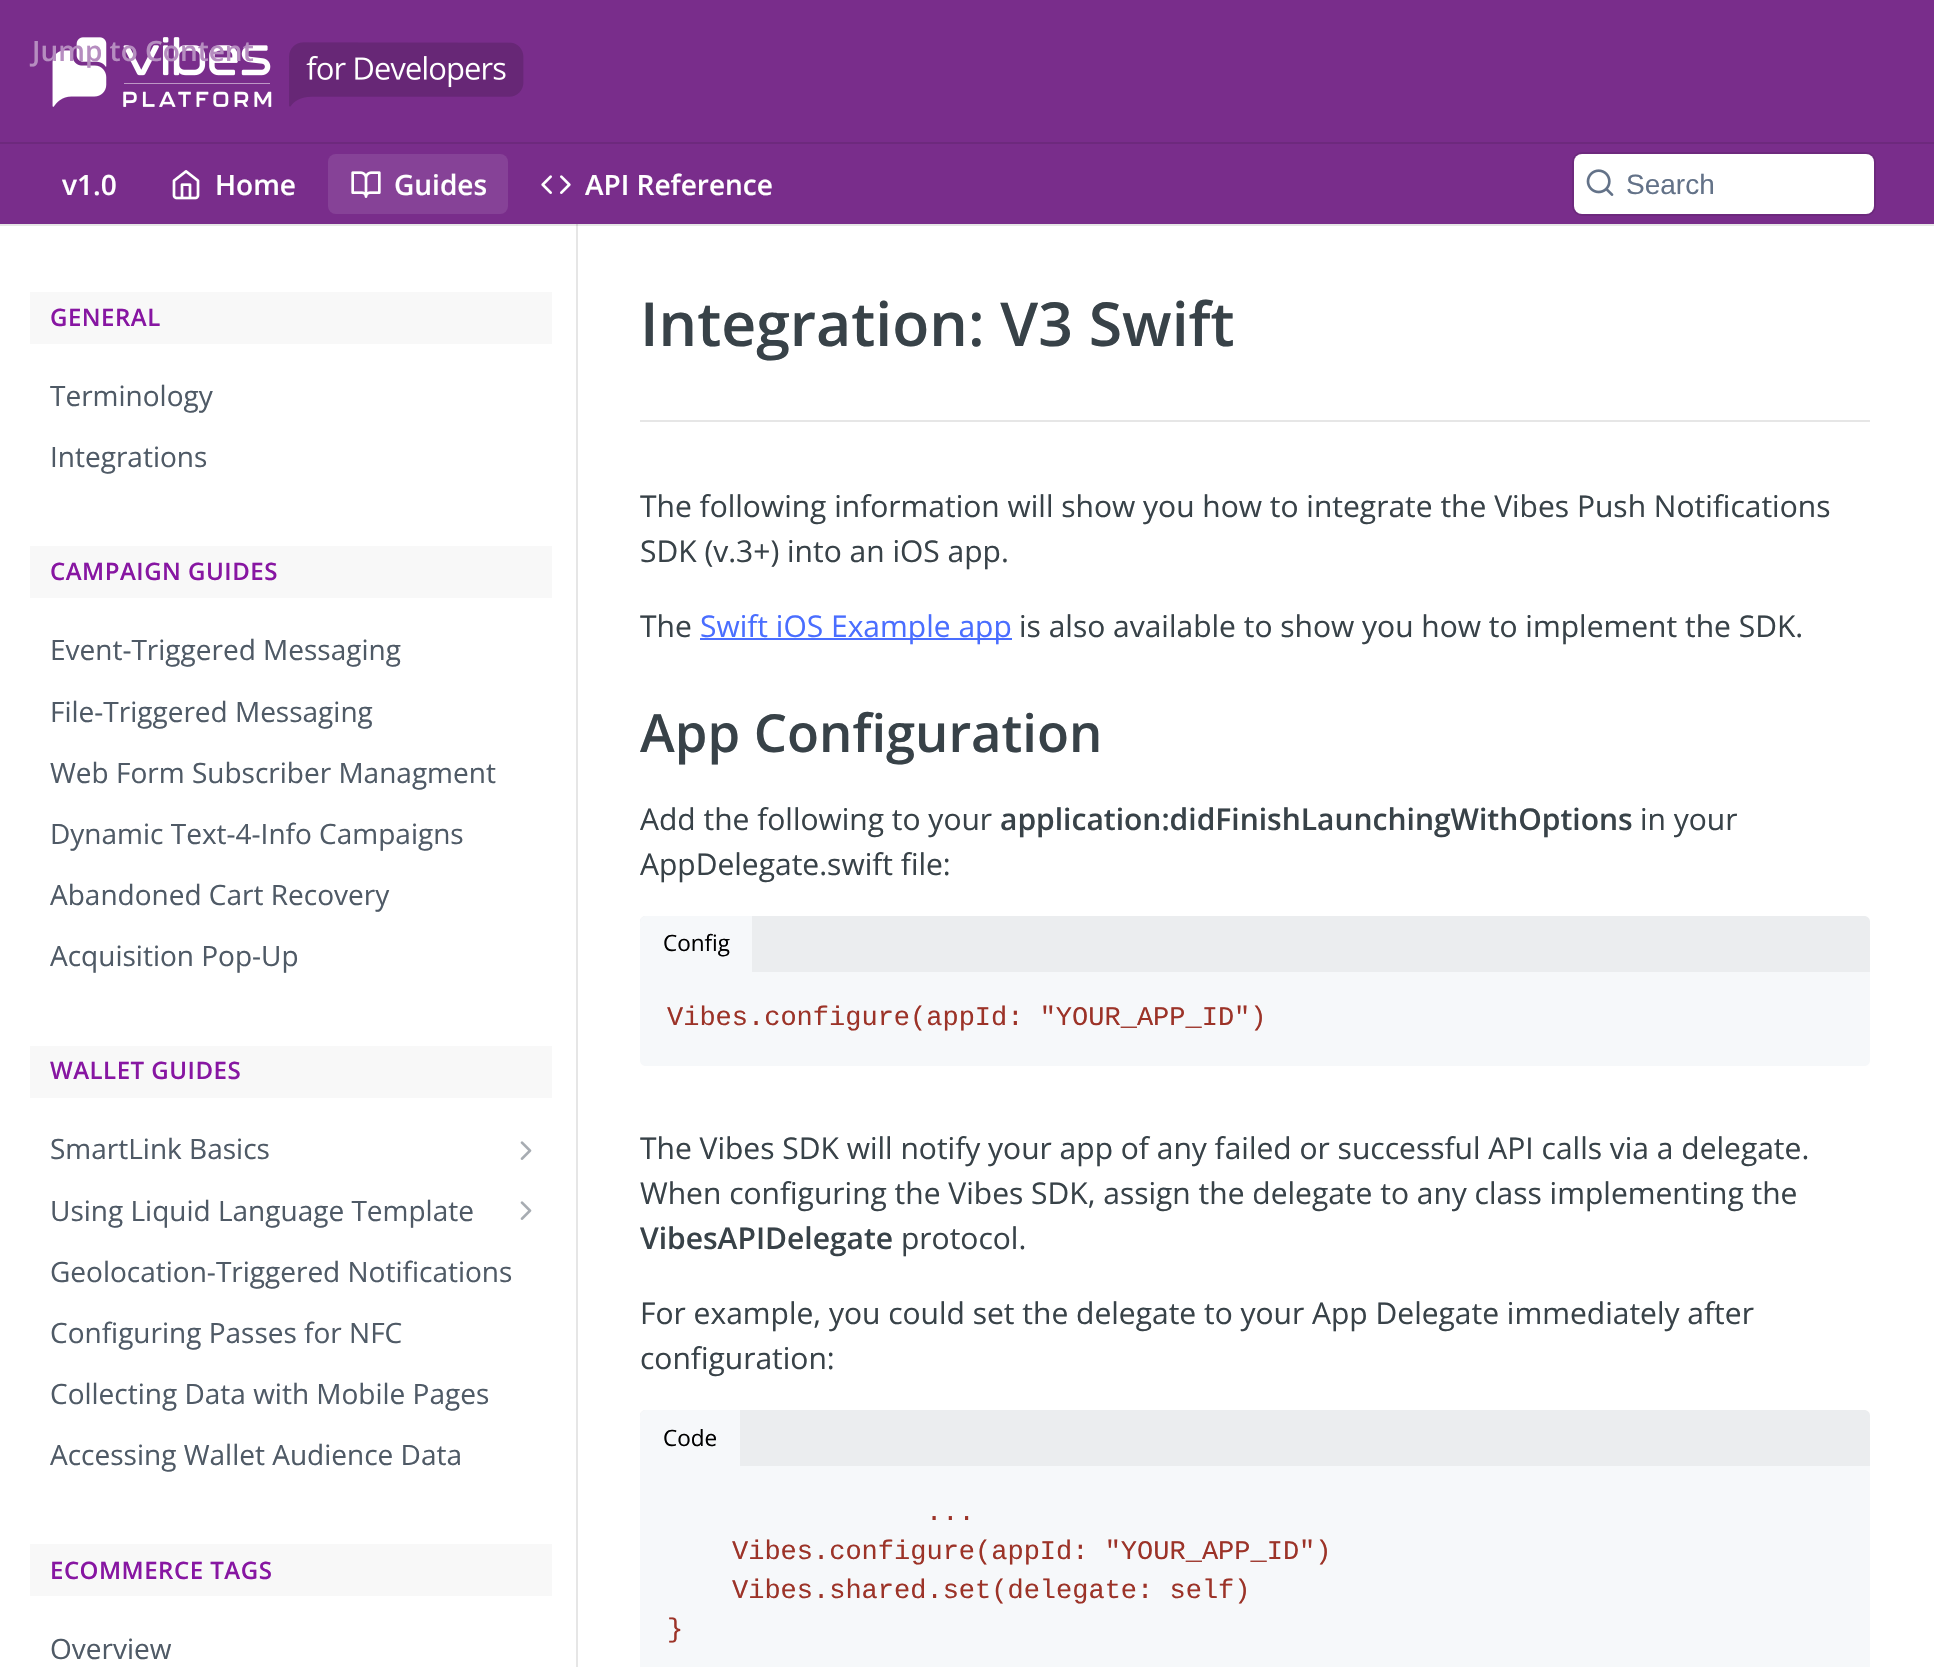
#include "include/core/SkBlurTypes.h"
#include "include/core/SkCanvas.h"
#include "include/core/SkData.h"
#include "include/core/SkFont.h"
#include "include/core/SkFontMgr.h"
#include "include/core/SkImage.h"
#include "include/core/SkMaskFilter.h"
#include "include/core/SkPaint.h"
#include "include/core/SkPathBuilder.h"
#include "include/core/SkTextBlob.h"
#include "include/effects/SkDashPathEffect.h"
#include "include/effects/SkGradientShader.h"
#include "include/utils/SkParsePath.h"

extern sk_sp<SkFontMgr> fontMgr;

void draw(SkCanvas* canvas) {
  SkPaint p;
  p.setAntiAlias(true);
  auto spacedText = [&](const char* s, float x, float y, const SkFont& font, const SkPaint& ink, float letter, float word) {
    std::vector<SkGlyphID> glyphs(font.countText(s, strlen(s), SkTextEncoding::kUTF8));
    std::vector<float> xs(glyphs.size());
    font.textToGlyphs(s, strlen(s), SkTextEncoding::kUTF8, glyphs);
    font.getXPos(glyphs, xs, x);
    float extra = 0;
    for (size_t i = 0; i < glyphs.size(); i++) {
      xs[i] += extra;
      extra += letter + word * (glyphs[i] == font.unicharToGlyph(' '));
    }
    canvas->drawTextBlob(SkTextBlob::MakeFromPosHGlyphs(glyphs, xs, y, font), 0, 0, ink);
  };
  canvas->clear(SK_ColorWHITE);
  p.setColor(SkColorSetRGB(230, 230, 230));
  canvas->drawRect(SkRect::MakeLTRB(0, 224, 1934, 226), p);
  p.setColor(SkColorSetRGB(121, 45, 139));
  canvas->drawRect(SkRect::MakeLTRB(0, 0, 1934, 224), p);
  p.setColor(SkColorSetRGB(109, 41, 125));
  canvas->drawRect(SkRect::MakeLTRB(0, 142, 1934, 144), p);
  canvas->drawImageRect(SkImages::DeferredFromEncodedData(SkData::MakeFromFileName("images/1.png")), SkRect::MakeLTRB(52, 37, 524, 107), SkSamplingOptions());
  canvas->drawImageRect(SkImages::DeferredFromEncodedData(SkData::MakeFromFileName("images/2.png")), SkRect::MakeLTRB(172, 170, 200, 200), SkSamplingOptions());
  p.setColor(SkColorSetRGB(134, 66, 151));
  canvas->drawRoundRect(SkRect::MakeLTRB(328, 154, 508, 214), 8, 8, p);
  canvas->drawImageRect(SkImages::DeferredFromEncodedData(SkData::MakeFromFileName("images/3.png")), SkRect::MakeLTRB(351, 171, 381, 198), SkSamplingOptions());
  canvas->drawImageRect(SkImages::DeferredFromEncodedData(SkData::MakeFromFileName("images/4.png")), SkRect::MakeLTRB(541, 175, 571, 194), SkSamplingOptions());
  p.setStyle(SkPaint::kStroke_Style);
  p.setStrokeWidth(2);
  p.setColor(SkColorSetRGB(109, 41, 125));
  canvas->drawRoundRect(SkRect::MakeLTRB(1573, 153, 1875, 215), 9, 9, p);
  p.setStyle(SkPaint::kFill_Style);
  p.setColor(SK_ColorWHITE);
  canvas->drawRoundRect(SkRect::MakeLTRB(1574, 154, 1874, 214), 8, 8, p);
  canvas->drawImageRect(SkImages::DeferredFromEncodedData(SkData::MakeFromFileName("images/5.png")), SkRect::MakeLTRB(1586, 169, 1614, 196), SkSamplingOptions());
  p.setColor(SkColorSetRGB(230, 230, 230));
  canvas->drawRect(SkRect::MakeLTRB(576, 224, 578, 1667), p);
  p.setColor(SkColorSetRGB(207, 207, 207));
  canvas->drawRect(SkRect::MakeLTRB(576, 224, 578, 226), p);
  p.setColor(SkColorSetRGB(248, 248, 248));
  canvas->drawRect(SkRect::MakeLTRB(30, 292, 552, 344), p);
  canvas->drawRect(SkRect::MakeLTRB(30, 546, 552, 598), p);
  canvas->drawRect(SkRect::MakeLTRB(30, 1046, 552, 1098), p);
  canvas->drawImageRect(SkImages::DeferredFromEncodedData(SkData::MakeFromFileName("images/6.png")), SkRect::MakeLTRB(520, 1141, 532, 1160), SkSamplingOptions());
  canvas->drawImageRect(SkImages::DeferredFromEncodedData(SkData::MakeFromFileName("images/6.png")), SkRect::MakeLTRB(520, 1201, 532, 1220), SkSamplingOptions());
  canvas->drawRect(SkRect::MakeLTRB(30, 1544, 552, 1596), p);
  p.setColor(SkColorSetRGB(230, 230, 230));
  canvas->drawRect(SkRect::MakeLTRB(640, 420, 1870, 422), p);
  p.setColor(SkColorSetRGB(74, 110, 255));
  canvas->drawRect(SkRect::MakeLTRB(700, 638, 1012, 640), p);
  p.setColor(SkColorSetRGB(235, 237, 239));
  canvas->drawPath(SkPathBuilder().moveTo(646, 916).lineTo(1864, 916).cubicTo(1867.5f, 916, 1870, 918.5f, 1870, 922).lineTo(1870, 972).lineTo(640, 972).lineTo(640, 922).cubicTo(640, 918.5f, 642.5f, 916, 646, 916).close().detach(), p);
  p.setColor(SkColorSetRGB(246, 248, 250));
  canvas->drawPath(SkPathBuilder().moveTo(646, 916).lineTo(752, 916).lineTo(752, 972).lineTo(640, 972).lineTo(640, 922).cubicTo(640, 918.5f, 642.5f, 916, 646, 916).close().detach(), p);
  canvas->drawPath(SkPathBuilder().moveTo(640, 972).lineTo(1870, 972).lineTo(1870, 1060).cubicTo(1870, 1063.5f, 1867.5f, 1066, 1864, 1066).lineTo(646, 1066).cubicTo(642.5f, 1066, 640, 1063.5f, 640, 1060).close().detach(), p);
  p.setColor(SkColorSetRGB(235, 237, 239));
  canvas->drawPath(SkPathBuilder().moveTo(646, 1410).lineTo(1864, 1410).cubicTo(1867.5f, 1410, 1870, 1412.5f, 1870, 1416).lineTo(1870, 1466).lineTo(640, 1466).lineTo(640, 1416).cubicTo(640, 1412.5f, 642.5f, 1410, 646, 1410).close().detach(), p);
  p.setColor(SkColorSetRGB(246, 248, 250));
  canvas->drawPath(SkPathBuilder().moveTo(646, 1410).lineTo(740, 1410).lineTo(740, 1466).lineTo(640, 1466).lineTo(640, 1416).cubicTo(640, 1412.5f, 642.5f, 1410, 646, 1410).close().detach(), p);
  canvas->drawRect(SkRect::MakeLTRB(640, 1466, 1870, 1667), p);
  SkFont font1(fontMgr->matchFamilyStyle("Open Sans", SkFontStyle(600, SkFontStyle::kNormal_Width, SkFontStyle::kUpright_Slant)), 28);
  font1.setSubpixel(true);
  p.setColor(SkColorSetRGB(182, 141, 192));
  canvas->drawString("Jump to Content", 32, 61, font1, p);
  p.setColor(SK_ColorWHITE);
  canvas->drawString("v1.0", 62, 195, font1, p);
  canvas->drawString("Home", 215, 195, font1, p);
  canvas->drawString("Guides", 394, 195, font1, p);
  canvas->drawString("API Reference", 585, 195, font1, p);
  SkFont font2(fontMgr->matchFamilyStyle("Liberation Sans", SkFontStyle::Normal()), 28);
  font2.setSubpixel(true);
  p.setColor(SkColorSetRGB(99, 114, 136));
  canvas->drawString("Search", 1626, 194, font2, p);
  SkFont font3(fontMgr->matchFamilyStyle("Open Sans", SkFontStyle(600, SkFontStyle::kNormal_Width, SkFontStyle::kUpright_Slant)), 24);
  font3.setSubpixel(true);
  p.setColor(SkColorSetRGB(135, 22, 162));
  spacedText("GENERAL", 50, 326, font3, p, 0.5f, 0);
  SkFont font4(fontMgr->matchFamilyStyle("Open Sans", SkFontStyle::Normal()), 28);
  font4.setSubpixel(true);
  p.setColor(SkColorSetRGB(79, 90, 102));
  canvas->drawString("Terminology", 50, 406, font4, p);
  canvas->drawString("Integrations", 50, 467, font4, p);
  p.setColor(SkColorSetRGB(135, 22, 162));
  spacedText("CAMPAIGN GUIDES", 50, 580, font3, p, 0.5f, 0);
  p.setColor(SkColorSetRGB(79, 90, 102));
  canvas->drawString("Event-Triggered Messaging", 50, 660, font4, p);
  canvas->drawString("File-Triggered Messaging", 50, 722, font4, p);
  canvas->drawString("Web Form Subscriber Managment", 50, 783, font4, p);
  canvas->drawString("Dynamic Text-4-Info Campaigns", 50, 844, font4, p);
  canvas->drawString("Abandoned Cart Recovery", 50, 905, font4, p);
  canvas->drawString("Acquisition Pop-Up", 50, 966, font4, p);
  p.setColor(SkColorSetRGB(135, 22, 162));
  spacedText("WALLET GUIDES", 50, 1079, font3, p, 0.5f, 0);
  p.setColor(SkColorSetRGB(79, 90, 102));
  canvas->drawString("SmartLink Basics", 50, 1159, font4, p);
  canvas->drawString("Using Liquid Language Template", 50, 1221, font4, p);
  canvas->drawString("Geolocation-Triggered Notifications", 50, 1282, font4, p);
  canvas->drawString("Configuring Passes for NFC", 50, 1343, font4, p);
  canvas->drawString("Collecting Data with Mobile Pages", 50, 1404, font4, p);
  canvas->drawString("Accessing Wallet Audience Data", 50, 1465, font4, p);
  p.setColor(SkColorSetRGB(135, 22, 162));
  spacedText("ECOMMERCE TAGS", 50, 1579, font3, p, 0.5f, 0);
  p.setColor(SkColorSetRGB(79, 90, 102));
  canvas->drawString("Overview", 50, 1659, font4, p);
  SkFont font5(fontMgr->matchFamilyStyle("Open Sans", SkFontStyle(600, SkFontStyle::kNormal_Width, SkFontStyle::kUpright_Slant)), 60.75f);
  font5.setSubpixel(true);
  p.setColor(SkColorSetRGB(56, 66, 72));
  canvas->drawString("Integration: V3 Swift", 640, 346, font5, p);
  SkFont font6(fontMgr->matchFamilyStyle("Open Sans", SkFontStyle::Normal()), 30);
  font6.setSubpixel(true);
  canvas->drawString("The following information will show you how to integrate the Vibes Push Notifications", 640, 517, font6, p);
  canvas->drawString("SDK (v.3+) into an iOS app.", 640, 562, font6, p);
  canvas->drawString("The", 640, 637, font6, p);
  p.setColor(SkColorSetRGB(74, 110, 255));
  canvas->drawString("Swift iOS Example app", 700, 637, font6, p);
  p.setColor(SkColorSetRGB(56, 66, 72));
  canvas->drawString("is also available to show you how to implement the SDK.", 1019, 637, font6, p);
  SkFont font7(fontMgr->matchFamilyStyle("Open Sans", SkFontStyle(600, SkFontStyle::kNormal_Width, SkFontStyle::kUpright_Slant)), 52.5f);
  font7.setSubpixel(true);
  canvas->drawString("App Configuration", 640, 752, font7, p);
  canvas->drawString("Add the following to your", 640, 830, font6, p);
  SkFont font8(fontMgr->matchFamilyStyle("Open Sans", SkFontStyle(600, SkFontStyle::kNormal_Width, SkFontStyle::kUpright_Slant)), 30);
  font8.setSubpixel(true);
  canvas->drawString("application:didFinishLaunchingWithOptions", 1000, 830, font8, p);
  canvas->drawString("in your", 1640, 830, font6, p);
  canvas->drawString("AppDelegate.swift file:", 640, 875, font6, p);
  SkFont font9(fontMgr->matchFamilyStyle("Open Sans", SkFontStyle::Normal()), 22.5f);
  font9.setSubpixel(true);
  p.setColor(SK_ColorBLACK);
  canvas->drawString("Config", 663, 951, font9, p);
  SkFont font10(fontMgr->matchFamilyStyle("Liberation Mono", SkFontStyle::Normal()), 27);
  font10.setSubpixel(true);
  p.setColor(SkColorSetRGB(156, 51, 40));
  canvas->drawString("Vibes.configure(appId: \"YOUR_APP_ID\")", 667, 1025, font10, p);
  p.setColor(SkColorSetRGB(56, 66, 72));
  canvas->drawString("The Vibes SDK will notify your app of any failed or successful API calls via a delegate.", 640, 1159, font6, p);
  canvas->drawString("When configuring the Vibes SDK, assign the delegate to any class implementing the", 640, 1204, font6, p);
  canvas->drawString("VibesAPIDelegate", 640, 1249, font8, p);
  canvas->drawString("protocol.", 901, 1249, font6, p);
  canvas->drawString("For example, you could set the delegate to your App Delegate immediately after", 640, 1324, font6, p);
  canvas->drawString("configuration:", 640, 1369, font6, p);
  p.setColor(SK_ColorBLACK);
  canvas->drawString("Code", 663, 1446, font9, p);
  p.setColor(SkColorSetRGB(156, 51, 40));
  canvas->drawString("...", 926, 1520, font10, p);
  canvas->drawString("Vibes.configure(appId: \"YOUR_APP_ID\")", 732, 1559, font10, p);
  canvas->drawString("Vibes.shared.set(delegate: self)", 732, 1598, font10, p);
  canvas->drawString("}", 667, 1637, font10, p);
}
